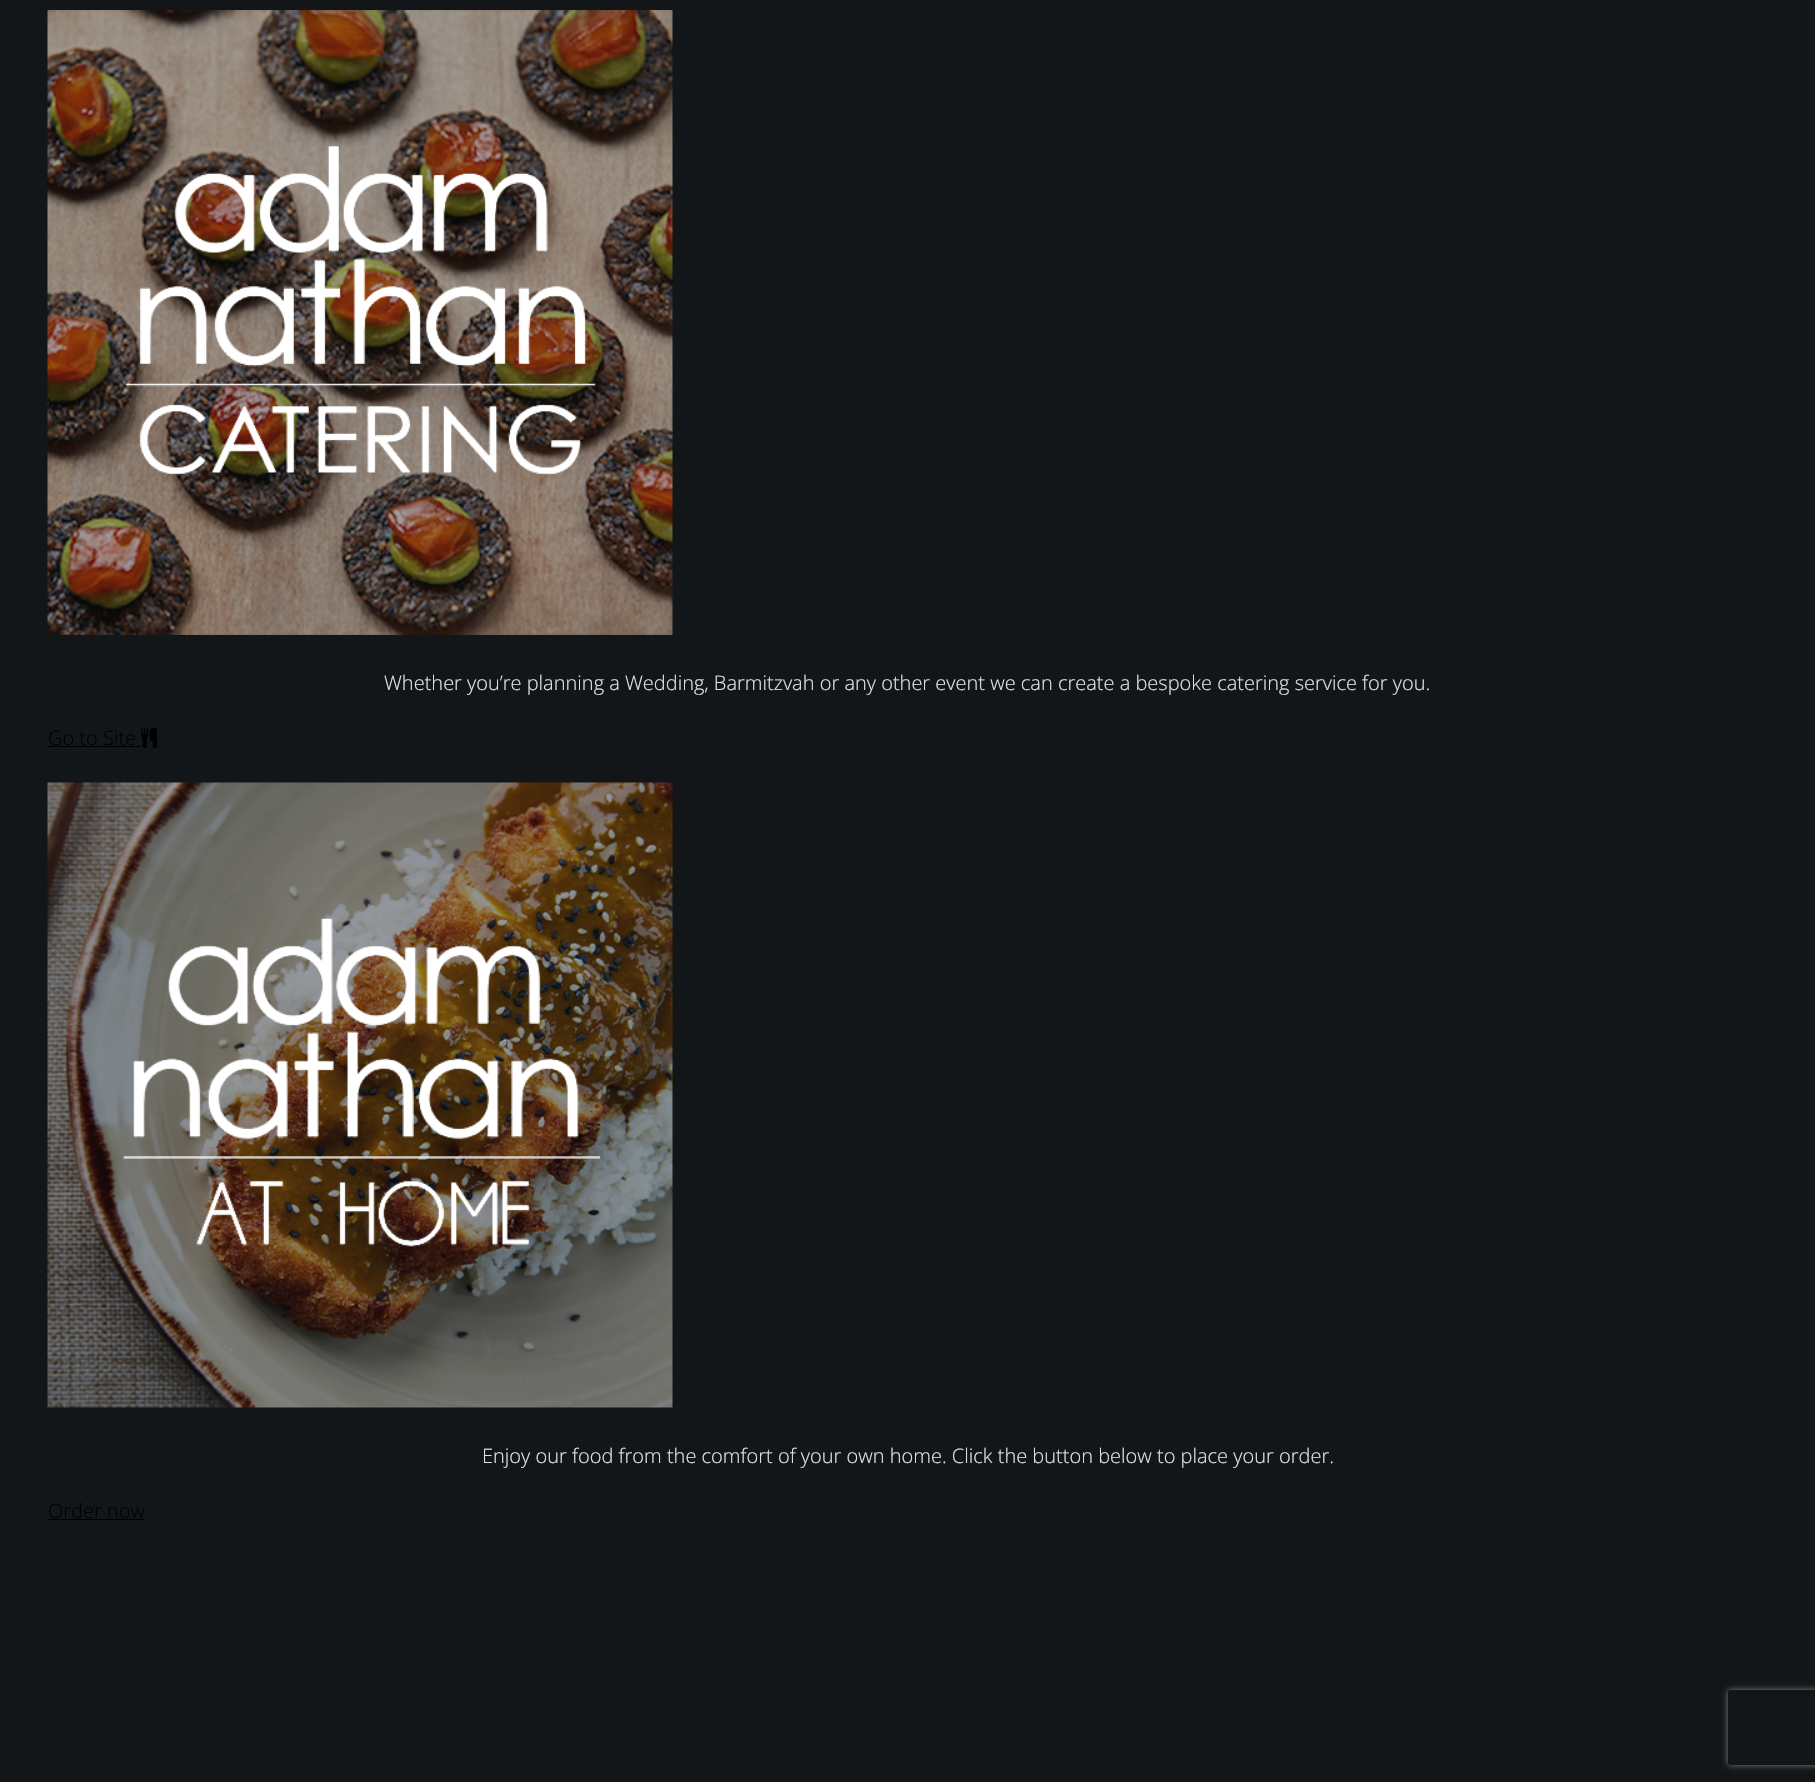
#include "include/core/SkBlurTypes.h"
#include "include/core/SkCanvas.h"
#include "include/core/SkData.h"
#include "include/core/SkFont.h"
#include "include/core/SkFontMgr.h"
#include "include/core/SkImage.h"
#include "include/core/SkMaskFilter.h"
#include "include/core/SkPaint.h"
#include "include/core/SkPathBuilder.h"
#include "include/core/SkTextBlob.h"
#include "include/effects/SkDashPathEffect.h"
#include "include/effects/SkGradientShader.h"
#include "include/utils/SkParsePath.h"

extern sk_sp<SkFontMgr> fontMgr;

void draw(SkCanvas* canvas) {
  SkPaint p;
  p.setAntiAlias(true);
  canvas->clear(SkColorSetRGB(18, 22, 24));
  canvas->drawImageRect(SkImages::DeferredFromEncodedData(SkData::MakeFromFileName("images/1.png")), SkRect::MakeLTRB(47, 10, 673, 635), SkSamplingOptions());
  p.setColor(SK_ColorBLACK);
  canvas->drawRect(SkRect::MakeLTRB(48, 746, 141, 747), p);
  canvas->drawImageRect(SkImages::DeferredFromEncodedData(SkData::MakeFromFileName("images/2.png")), SkRect::MakeLTRB(141, 728, 157, 748), SkSamplingOptions());
  canvas->drawImageRect(SkImages::DeferredFromEncodedData(SkData::MakeFromFileName("images/3.png")), SkRect::MakeLTRB(47, 782, 673, 1408), SkSamplingOptions());
  canvas->drawRect(SkRect::MakeLTRB(48, 1519, 145, 1520), p);
  canvas->save();
  canvas->clipPath(SkPathBuilder(SkPathFillType::kEvenOdd).moveTo(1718, 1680).lineTo(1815, 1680).lineTo(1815, 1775).lineTo(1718, 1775).close().moveTo(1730.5f, 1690).lineTo(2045.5f, 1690).cubicTo(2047, 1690, 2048, 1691, 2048, 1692.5f).lineTo(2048, 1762.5f).cubicTo(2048, 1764, 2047, 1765, 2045.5f, 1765).lineTo(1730.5f, 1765).cubicTo(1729, 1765, 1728, 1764, 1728, 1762.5f).lineTo(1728, 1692.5f).cubicTo(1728, 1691, 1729, 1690, 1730.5f, 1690).close().detach(), true);
  p.setColor(SkColorSetRGB(128, 128, 128));
  p.setMaskFilter(SkMaskFilter::MakeBlur(kNormal_SkBlurStyle, 3));
  canvas->drawRoundRect(SkRect::MakeLTRB(1728, 1690, 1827, 1765), 2.5f, 2.5f, p);
  p.setMaskFilter(nullptr);
  canvas->restore();
  SkFont font1(fontMgr->matchFamilyStyle("Open Sans", SkFontStyle(300, SkFontStyle::kNormal_Width, SkFontStyle::kUpright_Slant)), 20);
  font1.setSubpixel(true);
  p.setColor(SkColorSetRGB(220, 228, 232));
  canvas->drawString("Whether you’re planning a Wedding, Barmitzvah or any other event we can create a bespoke catering service for you.", 384, 690, font1, p);
  p.setColor(SK_ColorBLACK);
  canvas->drawString("Go to Site", 48, 745, font1, p);
  p.setColor(SkColorSetRGB(220, 228, 232));
  canvas->drawString("Enjoy our food from the comfort of your own home. Click the button below to place your order.", 482, 1463, font1, p);
  p.setColor(SK_ColorBLACK);
  canvas->drawString("Order now", 48, 1518, font1, p);
}
